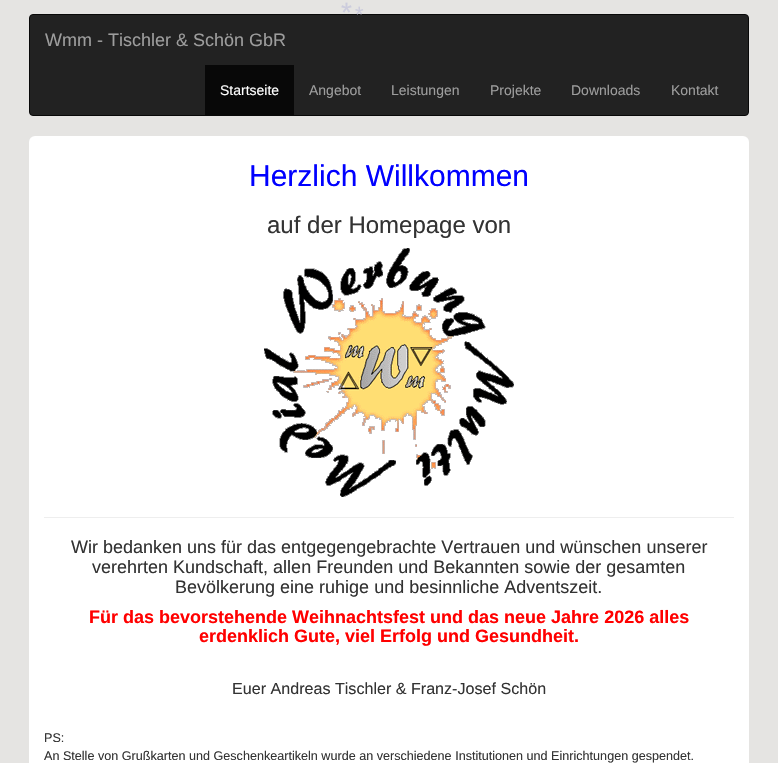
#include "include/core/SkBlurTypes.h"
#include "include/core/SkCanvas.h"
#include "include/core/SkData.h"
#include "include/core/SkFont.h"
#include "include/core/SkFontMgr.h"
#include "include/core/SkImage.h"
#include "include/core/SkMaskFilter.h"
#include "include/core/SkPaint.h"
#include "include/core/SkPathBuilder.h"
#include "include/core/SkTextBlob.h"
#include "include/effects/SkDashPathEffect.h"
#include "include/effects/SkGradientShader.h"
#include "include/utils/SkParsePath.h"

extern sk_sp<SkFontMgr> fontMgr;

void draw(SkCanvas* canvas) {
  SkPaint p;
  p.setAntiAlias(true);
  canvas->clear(SkColorSetRGB(229, 228, 226));
  p.setColor(SkColorSetRGB(34, 34, 34));
  canvas->drawRoundRect(SkRect::MakeLTRB(29.5f, 14.5f, 748.5f, 115.5f), 3.5f, 3.5f, p);
  p.setStyle(SkPaint::kStroke_Style);
  p.setStrokeWidth(1);
  p.setColor(SkColorSetRGB(8, 8, 8));
  canvas->drawRoundRect(SkRect::MakeLTRB(29.5f, 14.5f, 748.5f, 115.5f), 3.5f, 3.5f, p);
  p.setStyle(SkPaint::kFill_Style);
  canvas->drawRect(SkRect::MakeLTRB(205, 65, 294, 115), p);
  p.setColor(SK_ColorWHITE);
  canvas->drawRoundRect(SkRect::MakeLTRB(29, 136, 749, 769), 6, 6, p);
  canvas->drawImageRect(SkImages::DeferredFromEncodedData(SkData::MakeFromFileName("images/1.png")), SkRect::MakeLTRB(264, 248, 514, 497), SkSamplingOptions());
  p.setColor(SkColorSetRGB(238, 238, 238));
  canvas->drawRect(SkRect::MakeLTRB(44, 517, 734, 518), p);
  SkFont font1(fontMgr->matchFamilyStyle("Liberation Sans", SkFontStyle::Normal()), 28);
  font1.setSubpixel(true);
  p.setColor(SkColorSetRGB(204, 204, 221));
  canvas->drawString("*", 341, 22, font1, p);
  SkFont font2(fontMgr->matchFamilyStyle("Liberation Sans", SkFontStyle::Normal()), 22);
  font2.setSubpixel(true);
  canvas->drawString("*", 355, 22, font2, p);
  SkFont font3(fontMgr->matchFamilyStyle("Liberation Sans", SkFontStyle::Normal()), 18);
  font3.setSubpixel(true);
  p.setColor(SkColorSetRGB(157, 157, 157));
  canvas->drawString("Wmm - Tischler & Schön GbR", 45, 46, font3, p);
  SkFont font4(fontMgr->matchFamilyStyle("Liberation Sans", SkFontStyle::Normal()), 14);
  font4.setSubpixel(true);
  p.setColor(SK_ColorWHITE);
  canvas->drawString("Startseite", 220, 95, font4, p);
  p.setColor(SkColorSetRGB(157, 157, 157));
  canvas->drawString("Angebot", 309, 95, font4, p);
  canvas->drawString("Leistungen", 391, 95, font4, p);
  canvas->drawString("Projekte", 490, 95, font4, p);
  canvas->drawString("Downloads", 571, 95, font4, p);
  canvas->drawString("Kontakt", 671, 95, font4, p);
  SkFont font5(fontMgr->matchFamilyStyle("Liberation Sans", SkFontStyle::Normal()), 30);
  font5.setSubpixel(true);
  p.setColor(SkColorSetRGB(0, 0, 255));
  canvas->drawString("Herzlich Willkommen", 249, 186, font5, p);
  SkFont font6(fontMgr->matchFamilyStyle("Liberation Sans", SkFontStyle::Normal()), 24);
  font6.setSubpixel(true);
  p.setColor(SkColorSetRGB(51, 51, 51));
  canvas->drawString("auf der Homepage von", 267, 233, font6, p);
  canvas->drawString("Wir bedanken uns für das entgegengebrachte Vertrauen und wünschen unserer", 71, 553, font3, p);
  canvas->drawString("verehrten Kundschaft, allen Freunden und Bekannten sowie der gesamten", 92, 573, font3, p);
  canvas->drawString("Bevölkerung eine ruhige und besinnliche Adventszeit.", 175, 593, font3, p);
  SkFont font7(fontMgr->matchFamilyStyle("Liberation Sans", SkFontStyle::Bold()), 18);
  font7.setSubpixel(true);
  p.setColor(SkColorSetRGB(255, 0, 0));
  canvas->drawString("Für das bevorstehende Weihnachtsfest und das neue Jahre 2026 alles", 89, 623, font7, p);
  canvas->drawString("erdenklich Gute, viel Erfolg und Gesundheit.", 199, 642, font7, p);
  SkFont font8(fontMgr->matchFamilyStyle("Liberation Sans", SkFontStyle::Normal()), 16.1f);
  font8.setSubpixel(true);
  p.setColor(SkColorSetRGB(51, 51, 51));
  canvas->drawString("Euer Andreas Tischler & Franz-Josef Schön", 232, 694, font8, p);
  SkFont font9(fontMgr->matchFamilyStyle("Liberation Sans", SkFontStyle::Normal()), 12.6f);
  font9.setSubpixel(true);
  canvas->drawString("PS:", 44, 742, font9, p);
  canvas->drawString("An Stelle von Grußkarten und Geschenkeartikeln wurde an verschiedene Institutionen und Einrichtungen gespendet.", 44, 760, font9, p);
}
